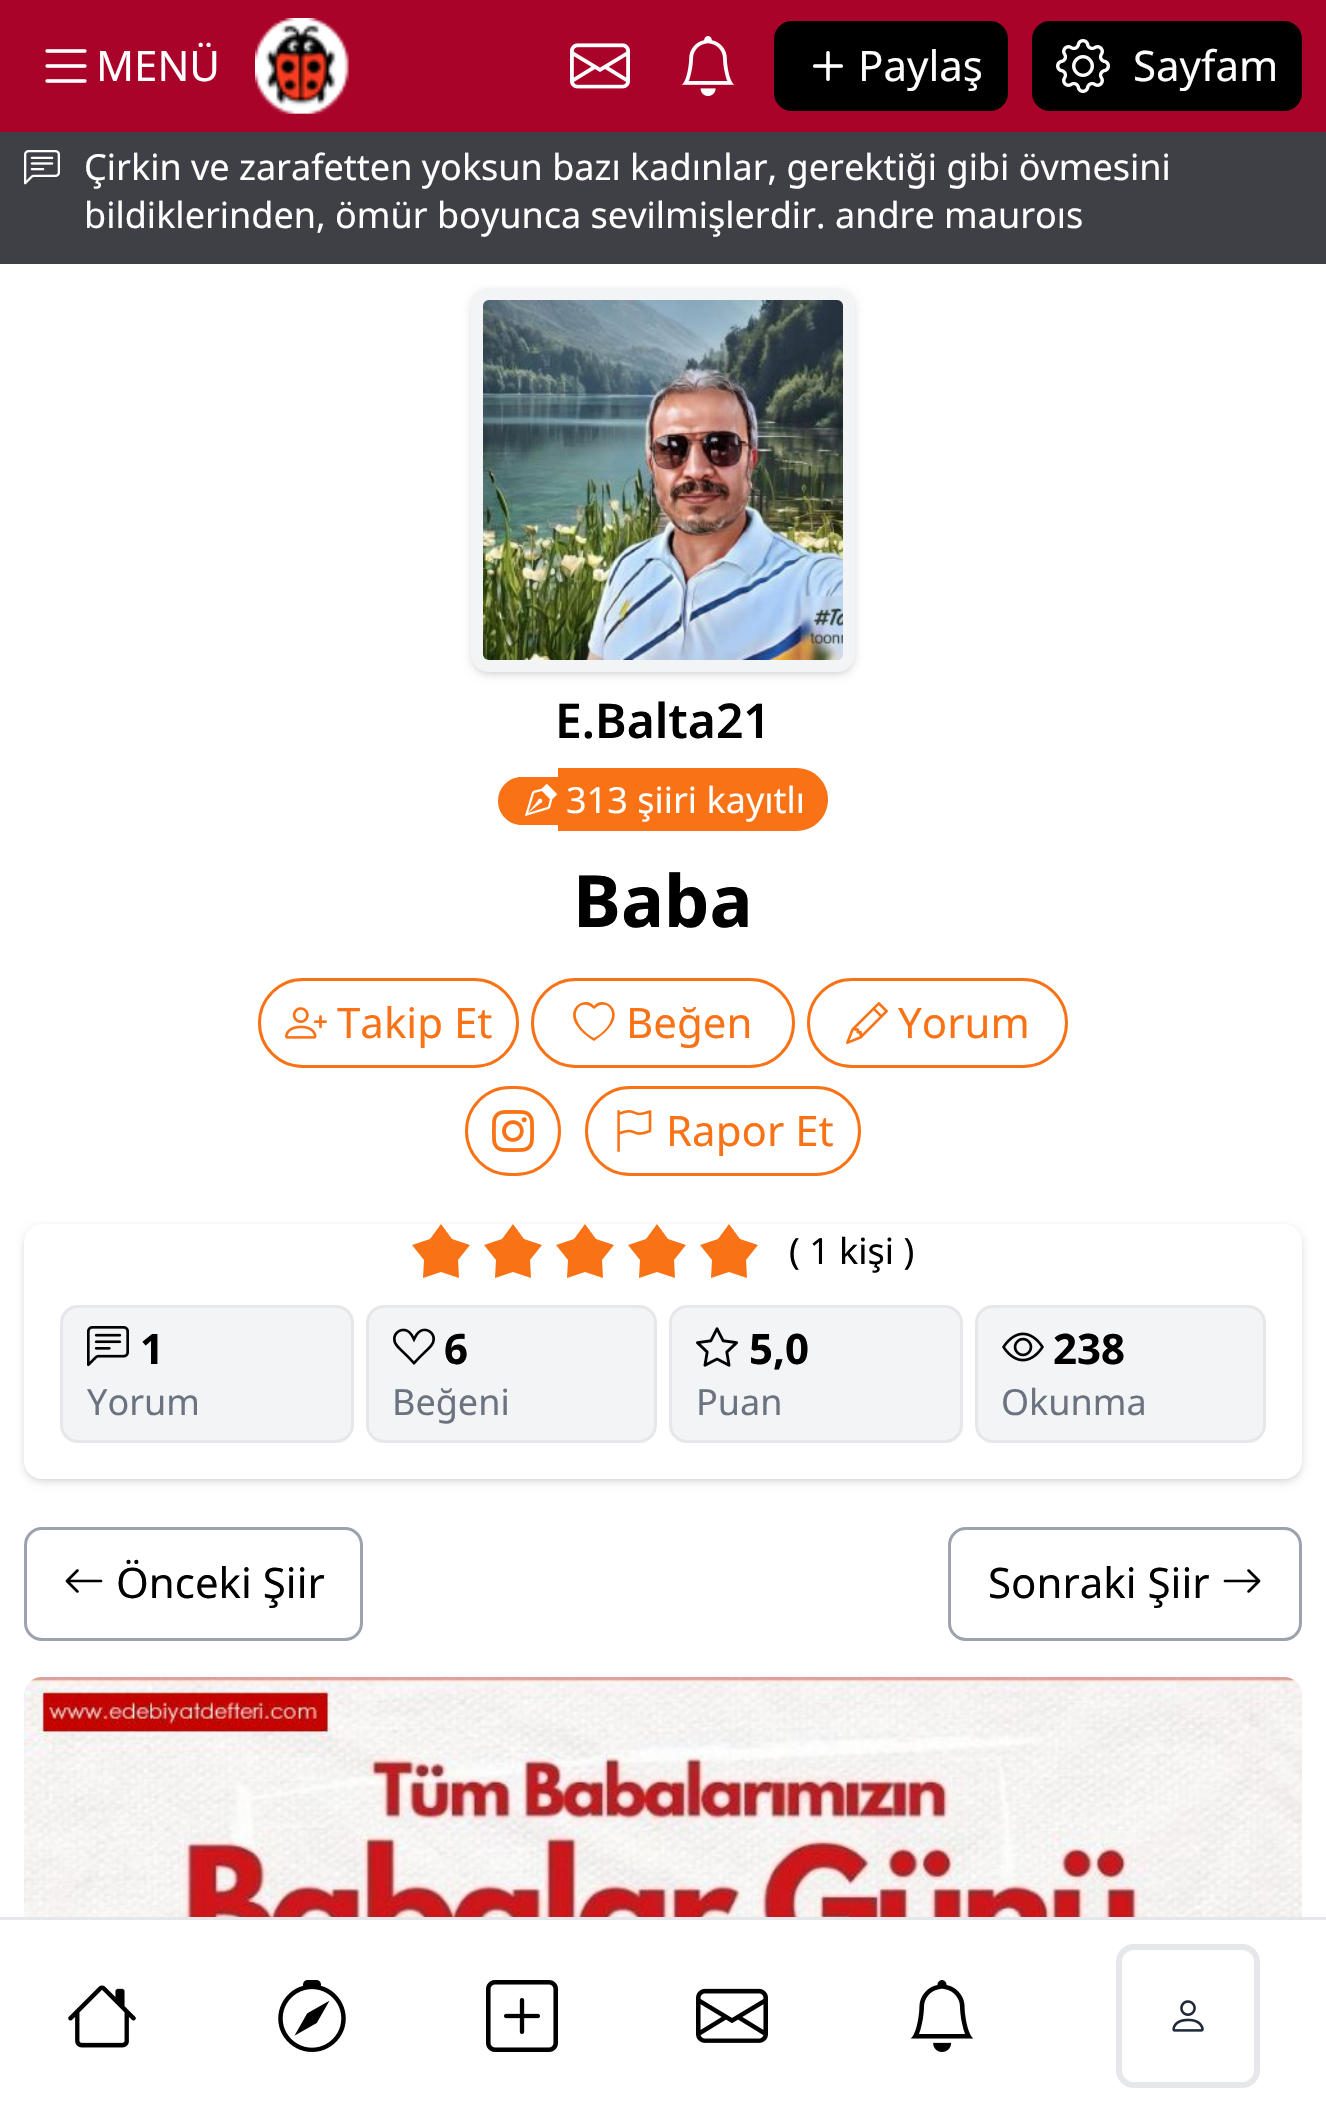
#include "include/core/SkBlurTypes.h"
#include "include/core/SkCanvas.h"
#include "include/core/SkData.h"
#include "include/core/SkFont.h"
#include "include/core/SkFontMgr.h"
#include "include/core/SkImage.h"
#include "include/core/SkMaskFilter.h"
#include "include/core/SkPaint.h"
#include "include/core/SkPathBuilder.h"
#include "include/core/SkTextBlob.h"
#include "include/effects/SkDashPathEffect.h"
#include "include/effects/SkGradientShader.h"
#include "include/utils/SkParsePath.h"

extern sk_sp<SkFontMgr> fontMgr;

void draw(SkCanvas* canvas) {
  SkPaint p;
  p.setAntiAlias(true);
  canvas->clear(SkColorSetRGB(63, 63, 70));
  p.setColor(SkColorSetRGB(169, 3, 41));
  canvas->drawRect(SkRect::MakeLTRB(0, 0, 1326, 132), p);
  canvas->drawImageRect(SkImages::DeferredFromEncodedData(SkData::MakeFromFileName("images/1.png")), SkRect::MakeLTRB(45, 49, 87, 83), SkSamplingOptions());
  canvas->drawImageRect(SkImages::DeferredFromEncodedData(SkData::MakeFromFileName("images/2.png")), SkRect::MakeLTRB(255, 18, 349, 114), SkSamplingOptions());
  canvas->drawImageRect(SkImages::DeferredFromEncodedData(SkData::MakeFromFileName("images/3.png")), SkRect::MakeLTRB(570, 43, 630, 89), SkSamplingOptions());
  canvas->drawImageRect(SkImages::DeferredFromEncodedData(SkData::MakeFromFileName("images/4.png")), SkRect::MakeLTRB(682, 36, 734, 96), SkSamplingOptions());
  p.setColor(SK_ColorBLACK);
  canvas->drawRoundRect(SkRect::MakeLTRB(774, 21, 1008, 111), 18, 18, p);
  canvas->drawImageRect(SkImages::DeferredFromEncodedData(SkData::MakeFromFileName("images/5.png")), SkRect::MakeLTRB(813, 51, 843, 81), SkSamplingOptions());
  canvas->drawRoundRect(SkRect::MakeLTRB(1032, 21, 1302, 111), 18, 18, p);
  canvas->drawImageRect(SkImages::DeferredFromEncodedData(SkData::MakeFromFileName("images/6.png")), SkRect::MakeLTRB(1056, 39, 1110, 93), SkSamplingOptions());
  canvas->drawImageRect(SkImages::DeferredFromEncodedData(SkData::MakeFromFileName("images/7.png")), SkRect::MakeLTRB(24, 150, 60, 185), SkSamplingOptions());
  p.setColor(SK_ColorWHITE);
  canvas->drawRect(SkRect::MakeLTRB(0, 264, 1326, 1917), p);
  p.setColor(SkColorSetARGB(26, 0, 0, 0));
  p.setMaskFilter(SkMaskFilter::MakeBlur(kNormal_SkBlurStyle, 3));
  canvas->drawRoundRect(SkRect::MakeLTRB(474, 294, 852, 672), 15, 15, p);
  p.setMaskFilter(nullptr);
  p.setMaskFilter(SkMaskFilter::MakeBlur(kNormal_SkBlurStyle, 4.5f));
  canvas->drawRoundRect(SkRect::MakeLTRB(471, 291, 855, 675), 18, 18, p);
  p.setMaskFilter(nullptr);
  p.setStyle(SkPaint::kStroke_Style);
  p.setStrokeWidth(12);
  p.setColor(SkColorSetRGB(243, 244, 246));
  canvas->drawRoundRect(SkRect::MakeLTRB(477, 294, 849, 666), 12, 12, p);
  canvas->drawImageRect(SkImages::DeferredFromEncodedData(SkData::MakeFromFileName("images/8.png")), SkRect::MakeLTRB(483, 300, 843, 660), SkSamplingOptions());
  p.setStyle(SkPaint::kFill_Style);
  p.setColor(SkColorSetRGB(249, 115, 22));
  canvas->drawPath(SkPathBuilder().moveTo(522, 777).lineTo(558, 777).lineTo(558, 825).lineTo(522, 825).cubicTo(508.5f, 825, 498, 814.5f, 498, 801).cubicTo(498, 787.5f, 508.5f, 777, 522, 777).close().detach(), p);
  canvas->drawPath(SkPathBuilder().moveTo(558, 768).lineTo(796.5f, 768).cubicTo(814, 768, 828, 782, 828, 799.5f).cubicTo(828, 817, 814, 831, 796.5f, 831).lineTo(558, 831).close().detach(), p);
  canvas->drawImageRect(SkImages::DeferredFromEncodedData(SkData::MakeFromFileName("images/9.png")), SkRect::MakeLTRB(525, 784, 557, 816), SkSamplingOptions());
  p.setStyle(SkPaint::kStroke_Style);
  p.setStrokeWidth(3);
  canvas->drawRoundRect(SkRect::MakeLTRB(259.5f, 979.5f, 517.5f, 1066.5f), 43.5f, 43.5f, p);
  canvas->drawImageRect(SkImages::DeferredFromEncodedData(SkData::MakeFromFileName("images/10.png")), SkRect::MakeLTRB(285, 1007, 327, 1039), SkSamplingOptions());
  canvas->drawRoundRect(SkRect::MakeLTRB(532.5f, 979.5f, 793.5f, 1066.5f), 43.5f, 43.5f, p);
  p.setStyle(SkPaint::kFill_Style);
  canvas->drawPath(SkPathBuilder().moveTo(594, 1009).lineTo(590, 1006).cubicTo(580, 1001, 573, 1011, 577, 1020).cubicTo(580, 1028, 587, 1034, 594, 1038).cubicTo(601, 1034, 608, 1028, 611, 1020).cubicTo(615, 1011, 608, 1001, 598, 1006).close().moveTo(594, 1041).cubicTo(552, 1014, 585, 993, 594, 1006).cubicTo(603, 993, 636, 1014, 594, 1041).close().detach(), p);
  p.setStyle(SkPaint::kStroke_Style);
  canvas->drawRoundRect(SkRect::MakeLTRB(808.5f, 979.5f, 1066.5f, 1066.5f), 43.5f, 43.5f, p);
  canvas->drawImageRect(SkImages::DeferredFromEncodedData(SkData::MakeFromFileName("images/11.png")), SkRect::MakeLTRB(846, 1002, 888, 1044), SkSamplingOptions());
  canvas->drawRoundRect(SkRect::MakeLTRB(466.5f, 1087.5f, 559.5f, 1174.5f), 43.5f, 43.5f, p);
  canvas->drawImageRect(SkImages::DeferredFromEncodedData(SkData::MakeFromFileName("images/12.png")), SkRect::MakeLTRB(492, 1110, 534, 1152), SkSamplingOptions());
  canvas->drawRoundRect(SkRect::MakeLTRB(586.5f, 1087.5f, 859.5f, 1174.5f), 43.5f, 43.5f, p);
  canvas->drawImageRect(SkImages::DeferredFromEncodedData(SkData::MakeFromFileName("images/13.png")), SkRect::MakeLTRB(617, 1110, 652, 1152), SkSamplingOptions());
  canvas->save();
  canvas->clipPath(SkPathBuilder(SkPathFillType::kEvenOdd).moveTo(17, 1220).lineTo(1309, 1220).lineTo(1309, 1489).lineTo(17, 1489).close().moveTo(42, 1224).lineTo(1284, 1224).cubicTo(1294, 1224, 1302, 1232, 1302, 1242).lineTo(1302, 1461).cubicTo(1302, 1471, 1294, 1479, 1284, 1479).lineTo(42, 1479).cubicTo(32, 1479, 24, 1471, 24, 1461).lineTo(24, 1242).cubicTo(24, 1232, 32, 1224, 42, 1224).close().detach(), true);
  p.setStyle(SkPaint::kFill_Style);
  p.setColor(SkColorSetARGB(26, 0, 0, 0));
  p.setMaskFilter(SkMaskFilter::MakeBlur(kNormal_SkBlurStyle, 3));
  canvas->drawRoundRect(SkRect::MakeLTRB(27, 1230, 1299, 1479), 15, 15, p);
  p.setMaskFilter(nullptr);
  canvas->restore();
  canvas->save();
  canvas->clipPath(SkPathBuilder(SkPathFillType::kEvenOdd).moveTo(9, 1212).lineTo(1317, 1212).lineTo(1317, 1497).lineTo(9, 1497).close().moveTo(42, 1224).lineTo(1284, 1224).cubicTo(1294, 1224, 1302, 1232, 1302, 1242).lineTo(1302, 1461).cubicTo(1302, 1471, 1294, 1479, 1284, 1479).lineTo(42, 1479).cubicTo(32, 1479, 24, 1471, 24, 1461).lineTo(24, 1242).cubicTo(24, 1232, 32, 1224, 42, 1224).close().detach(), true);
  p.setMaskFilter(SkMaskFilter::MakeBlur(kNormal_SkBlurStyle, 4.5f));
  canvas->drawRoundRect(SkRect::MakeLTRB(24, 1227, 1302, 1482), 18, 18, p);
  p.setMaskFilter(nullptr);
  canvas->restore();
  p.setColor(SkColorSetRGB(249, 115, 22));
  canvas->drawPath(SkPathBuilder().moveTo(441, 1224).lineTo(452, 1239).lineTo(470, 1245).lineTo(458, 1260).lineTo(459, 1278).lineTo(441, 1272).lineTo(423, 1278).lineTo(424, 1260).lineTo(412, 1245).lineTo(430, 1239).close().detach(), p);
  canvas->drawPath(SkPathBuilder().moveTo(513, 1224).lineTo(524, 1239).lineTo(542, 1245).lineTo(530, 1260).lineTo(531, 1278).lineTo(513, 1272).lineTo(495, 1278).lineTo(496, 1260).lineTo(484, 1245).lineTo(502, 1239).close().detach(), p);
  canvas->drawPath(SkPathBuilder().moveTo(585, 1224).lineTo(596, 1239).lineTo(614, 1245).lineTo(602, 1260).lineTo(603, 1278).lineTo(585, 1272).lineTo(567, 1278).lineTo(568, 1260).lineTo(556, 1245).lineTo(574, 1239).close().detach(), p);
  canvas->drawPath(SkPathBuilder().moveTo(657, 1224).lineTo(668, 1239).lineTo(686, 1245).lineTo(674, 1260).lineTo(675, 1278).lineTo(657, 1272).lineTo(639, 1278).lineTo(640, 1260).lineTo(628, 1245).lineTo(646, 1239).close().detach(), p);
  canvas->drawPath(SkPathBuilder().moveTo(729, 1224).lineTo(740, 1239).lineTo(758, 1245).lineTo(746, 1260).lineTo(747, 1278).lineTo(729, 1272).lineTo(711, 1278).lineTo(712, 1260).lineTo(700, 1245).lineTo(718, 1239).close().detach(), p);
  p.setColor(SkColorSetRGB(243, 244, 246));
  canvas->drawRoundRect(SkRect::MakeLTRB(61.5f, 1306.5f, 352.5f, 1441.5f), 16.5f, 16.5f, p);
  p.setStyle(SkPaint::kStroke_Style);
  p.setColor(SkColorSetRGB(229, 231, 235));
  canvas->drawRoundRect(SkRect::MakeLTRB(61.5f, 1306.5f, 352.5f, 1441.5f), 16.5f, 16.5f, p);
  canvas->drawImageRect(SkImages::DeferredFromEncodedData(SkData::MakeFromFileName("images/14.png")), SkRect::MakeLTRB(87, 1326, 129, 1367), SkSamplingOptions());
  p.setStyle(SkPaint::kFill_Style);
  p.setColor(SkColorSetRGB(243, 244, 246));
  canvas->drawRoundRect(SkRect::MakeLTRB(367.5f, 1306.5f, 655.5f, 1441.5f), 16.5f, 16.5f, p);
  p.setStyle(SkPaint::kStroke_Style);
  p.setColor(SkColorSetRGB(229, 231, 235));
  canvas->drawRoundRect(SkRect::MakeLTRB(367.5f, 1306.5f, 655.5f, 1441.5f), 16.5f, 16.5f, p);
  canvas->drawImageRect(SkImages::DeferredFromEncodedData(SkData::MakeFromFileName("images/15.png")), SkRect::MakeLTRB(393, 1328, 435, 1365), SkSamplingOptions());
  p.setStyle(SkPaint::kFill_Style);
  p.setColor(SkColorSetRGB(243, 244, 246));
  canvas->drawRoundRect(SkRect::MakeLTRB(670.5f, 1306.5f, 961.5f, 1441.5f), 16.5f, 16.5f, p);
  p.setStyle(SkPaint::kStroke_Style);
  p.setColor(SkColorSetRGB(229, 231, 235));
  canvas->drawRoundRect(SkRect::MakeLTRB(670.5f, 1306.5f, 961.5f, 1441.5f), 16.5f, 16.5f, p);
  canvas->drawImageRect(SkImages::DeferredFromEncodedData(SkData::MakeFromFileName("images/16.png")), SkRect::MakeLTRB(696, 1327, 738, 1367), SkSamplingOptions());
  p.setStyle(SkPaint::kFill_Style);
  p.setColor(SkColorSetRGB(243, 244, 246));
  canvas->drawRoundRect(SkRect::MakeLTRB(976.5f, 1306.5f, 1264.5f, 1441.5f), 16.5f, 16.5f, p);
  p.setStyle(SkPaint::kStroke_Style);
  p.setColor(SkColorSetRGB(229, 231, 235));
  canvas->drawRoundRect(SkRect::MakeLTRB(976.5f, 1306.5f, 1264.5f, 1441.5f), 16.5f, 16.5f, p);
  canvas->drawImageRect(SkImages::DeferredFromEncodedData(SkData::MakeFromFileName("images/17.png")), SkRect::MakeLTRB(1002, 1332, 1044, 1362), SkSamplingOptions());
  p.setColor(SkColorSetRGB(156, 163, 175));
  canvas->drawRoundRect(SkRect::MakeLTRB(25.5f, 1528.5f, 361.5f, 1639.5f), 16.5f, 16.5f, p);
  canvas->drawImageRect(SkImages::DeferredFromEncodedData(SkData::MakeFromFileName("images/18.png")), SkRect::MakeLTRB(65, 1569, 103, 1593), SkSamplingOptions());
  canvas->drawRoundRect(SkRect::MakeLTRB(949.5f, 1528.5f, 1300.5f, 1639.5f), 16.5f, 16.5f, p);
  canvas->drawImageRect(SkImages::DeferredFromEncodedData(SkData::MakeFromFileName("images/19.png")), SkRect::MakeLTRB(1223, 1569, 1261, 1593), SkSamplingOptions());
  canvas->drawImageRect(SkImages::DeferredFromEncodedData(SkData::MakeFromFileName("images/20.png")), SkRect::MakeLTRB(24, 1677, 1302, 1917), SkSamplingOptions());
  p.setStyle(SkPaint::kFill_Style);
  p.setColor(SK_ColorWHITE);
  canvas->drawRect(SkRect::MakeLTRB(0, 1920, 1326, 2112), p);
  p.setColor(SkColorSetRGB(229, 231, 235));
  canvas->drawRect(SkRect::MakeLTRB(0, 1917, 1326, 1920), p);
  canvas->drawImageRect(SkImages::DeferredFromEncodedData(SkData::MakeFromFileName("images/21.png")), SkRect::MakeLTRB(68, 1985, 136, 2048), SkSamplingOptions());
  canvas->drawImageRect(SkImages::DeferredFromEncodedData(SkData::MakeFromFileName("images/22.png")), SkRect::MakeLTRB(278, 1980, 346, 2052), SkSamplingOptions());
  canvas->drawImageRect(SkImages::DeferredFromEncodedData(SkData::MakeFromFileName("images/23.png")), SkRect::MakeLTRB(486, 1980, 558, 2052), SkSamplingOptions());
  canvas->drawImageRect(SkImages::DeferredFromEncodedData(SkData::MakeFromFileName("images/24.png")), SkRect::MakeLTRB(696, 1988, 768, 2043), SkSamplingOptions());
  canvas->drawImageRect(SkImages::DeferredFromEncodedData(SkData::MakeFromFileName("images/25.png")), SkRect::MakeLTRB(910, 1980, 974, 2052), SkSamplingOptions());
  p.setStyle(SkPaint::kStroke_Style);
  p.setStrokeWidth(6);
  canvas->drawRoundRect(SkRect::MakeLTRB(1119, 1947, 1257, 2085), 15, 15, p);
  canvas->drawImageRect(SkImages::DeferredFromEncodedData(SkData::MakeFromFileName("images/26.png")), SkRect::MakeLTRB(1172, 2000, 1204, 2032), SkSamplingOptions());
  SkFont font1(fontMgr->matchFamilyStyle("Noto Sans", SkFontStyle::Normal()), 42);
  font1.setSubpixel(true);
  p.setStyle(SkPaint::kFill_Style);
  p.setColor(SK_ColorWHITE);
  canvas->drawString("MENÜ", 96, 81, font1, p);
  canvas->drawString("Paylaş", 858, 81, font1, p);
  canvas->drawString("Sayfam", 1133, 81, font1, p);
  SkFont font2(fontMgr->matchFamilyStyle("Noto Sans", SkFontStyle::Normal()), 36);
  font2.setSubpixel(true);
  canvas->drawString("Çirkin ve zarafetten yoksun bazı kadınlar, gerektiği gibi övmesini", 84, 180, font2, p);
  canvas->drawString("bildiklerinden, ömür boyunca sevilmişlerdir. andre mauroıs", 84, 228, font2, p);
  SkFont font3(fontMgr->matchFamilyStyle("Noto Sans", SkFontStyle(600, SkFontStyle::kNormal_Width, SkFontStyle::kUpright_Slant)), 48);
  font3.setSubpixel(true);
  p.setColor(SK_ColorBLACK);
  canvas->drawString("E.Balta21", 555, 738, font3, p);
  p.setColor(SK_ColorWHITE);
  canvas->drawString("313 şiiri kayıtlı", 566, 813, font2, p);
  SkFont font4(fontMgr->matchFamilyStyle("Noto Sans", SkFontStyle::Bold()), 72);
  font4.setSubpixel(true);
  p.setColor(SK_ColorBLACK);
  canvas->drawString("Baba", 573, 927, font4, p);
  p.setColor(SkColorSetRGB(249, 115, 22));
  canvas->drawString("Takip Et", 337, 1038, font1, p);
  canvas->drawString("Beğen", 626, 1038, font1, p);
  canvas->drawString("Yorum", 898, 1038, font1, p);
  canvas->drawString("Rapor Et", 666, 1146, font1, p);
  p.setColor(SK_ColorBLACK);
  canvas->drawString("( 1 kişi )", 789, 1264, font2, p);
  SkFont font5(fontMgr->matchFamilyStyle("Noto Sans", SkFontStyle::Bold()), 42);
  font5.setSubpixel(true);
  canvas->drawString("1", 140, 1364, font5, p);
  p.setColor(SkColorSetRGB(107, 114, 128));
  canvas->drawString("Yorum", 87, 1415, font2, p);
  p.setColor(SK_ColorBLACK);
  canvas->drawString("6", 444, 1364, font5, p);
  p.setColor(SkColorSetRGB(107, 114, 128));
  canvas->drawString("Beğeni", 392, 1415, font2, p);
  p.setColor(SK_ColorBLACK);
  canvas->drawString("5,0", 749, 1364, font5, p);
  p.setColor(SkColorSetRGB(107, 114, 128));
  canvas->drawString("Puan", 696, 1415, font2, p);
  p.setColor(SK_ColorBLACK);
  canvas->drawString("238", 1053, 1364, font5, p);
  p.setColor(SkColorSetRGB(107, 114, 128));
  canvas->drawString("Okunma", 1001, 1415, font2, p);
  p.setColor(SK_ColorBLACK);
  canvas->drawString("Önceki Şiir", 116, 1598, font1, p);
  canvas->drawString("Sonraki Şiir", 988, 1598, font1, p);
}
